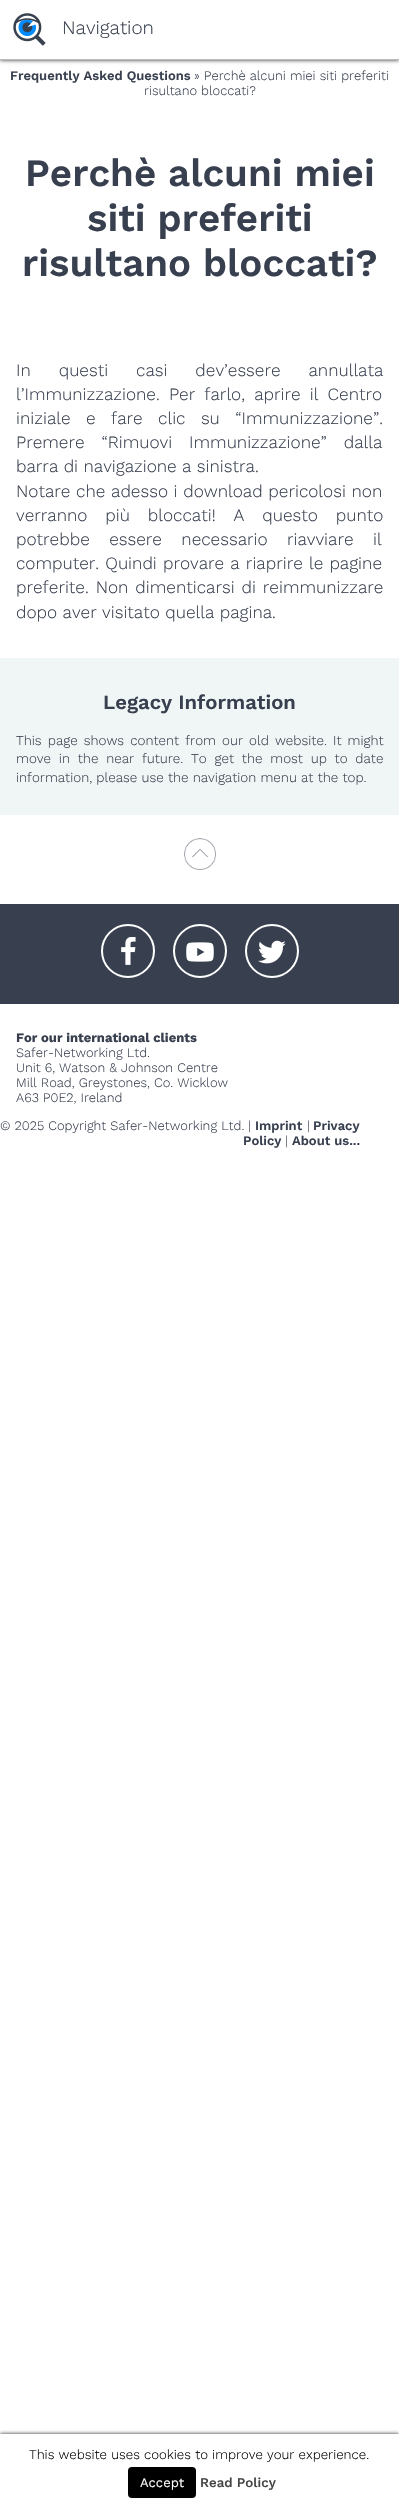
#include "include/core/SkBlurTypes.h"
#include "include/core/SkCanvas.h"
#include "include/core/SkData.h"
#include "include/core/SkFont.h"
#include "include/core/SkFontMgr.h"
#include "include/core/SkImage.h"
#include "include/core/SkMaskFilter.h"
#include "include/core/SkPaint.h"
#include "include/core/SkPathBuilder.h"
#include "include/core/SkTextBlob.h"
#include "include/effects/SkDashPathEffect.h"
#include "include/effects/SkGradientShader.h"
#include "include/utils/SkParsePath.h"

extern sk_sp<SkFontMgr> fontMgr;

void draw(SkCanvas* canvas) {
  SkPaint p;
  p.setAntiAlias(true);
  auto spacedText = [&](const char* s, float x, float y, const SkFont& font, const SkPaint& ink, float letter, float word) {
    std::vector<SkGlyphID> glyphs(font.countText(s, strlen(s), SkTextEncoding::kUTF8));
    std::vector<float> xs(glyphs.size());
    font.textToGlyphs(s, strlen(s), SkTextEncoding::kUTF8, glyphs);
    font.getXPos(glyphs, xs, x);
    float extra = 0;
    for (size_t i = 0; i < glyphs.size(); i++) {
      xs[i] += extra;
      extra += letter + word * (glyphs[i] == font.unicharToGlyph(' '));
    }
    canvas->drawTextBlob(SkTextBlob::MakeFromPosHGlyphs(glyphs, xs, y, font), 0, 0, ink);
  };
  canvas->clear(SK_ColorWHITE);
  p.setColor(SkColorSetARGB(219, 0, 0, 0));
  p.setMaskFilter(SkMaskFilter::MakeBlur(kNormal_SkBlurStyle, 2));
  canvas->drawRect(SkRect::MakeLTRB(0, 0, 399, 60), p);
  p.setMaskFilter(nullptr);
  p.setColor(SK_ColorWHITE);
  canvas->drawRect(SkRect::MakeLTRB(0, 0, 399, 59), p);
  p.setColor(SkColorSetRGB(188, 188, 188));
  canvas->drawRect(SkRect::MakeLTRB(0, 59, 399, 60), p);
  canvas->drawImageRect(SkImages::DeferredFromEncodedData(SkData::MakeFromFileName("images/1.png")), SkRect::MakeLTRB(13, 13, 46, 46), SkSamplingOptions());
  p.setColor(SkColorSetRGB(240, 245, 245));
  canvas->drawRect(SkRect::MakeLTRB(0, 658, 399, 815), p);
  canvas->drawImageRect(SkImages::DeferredFromEncodedData(SkData::MakeFromFileName("images/2.png")), SkRect::MakeLTRB(184, 838, 216, 870), SkSamplingOptions());
  p.setColor(SkColorSetRGB(56, 64, 79));
  canvas->drawRect(SkRect::MakeLTRB(0, 904, 399, 1004), p);
  p.setStyle(SkPaint::kStroke_Style);
  p.setStrokeWidth(2);
  p.setColor(SK_ColorWHITE);
  canvas->drawCircle(128, 951, 26, p);
  canvas->drawImageRect(SkImages::DeferredFromEncodedData(SkData::MakeFromFileName("images/3.png")), SkRect::MakeLTRB(121, 937, 136, 965), SkSamplingOptions());
  canvas->drawCircle(200, 951, 26, p);
  canvas->drawImageRect(SkImages::DeferredFromEncodedData(SkData::MakeFromFileName("images/4.png")), SkRect::MakeLTRB(186, 942, 214, 962), SkSamplingOptions());
  canvas->drawCircle(272, 951, 26, p);
  canvas->drawImageRect(SkImages::DeferredFromEncodedData(SkData::MakeFromFileName("images/5.png")), SkRect::MakeLTRB(258, 940, 286, 964), SkSamplingOptions());
  canvas->save();
  canvas->clipRect(SkRect::MakeLTRB(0, 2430, 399, 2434));
  p.setStyle(SkPaint::kFill_Style);
  p.setColor(SkColorSetARGB(219, 0, 0, 0));
  p.setMaskFilter(SkMaskFilter::MakeBlur(kNormal_SkBlurStyle, 2));
  canvas->drawRect(SkRect::MakeLTRB(0, 2434, 399, 2510), p);
  p.setMaskFilter(nullptr);
  canvas->restore();
  p.setColor(SK_ColorBLACK);
  canvas->drawRoundRect(SkRect::MakeLTRB(128, 2467, 196, 2498), 4, 4, p);
  SkFont font1(fontMgr->matchFamilyStyle("Work Sans", SkFontStyle(300, SkFontStyle::kNormal_Width, SkFontStyle::kUpright_Slant)), 19);
  font1.setSubpixel(true);
  p.setColor(SkColorSetRGB(56, 64, 79));
  canvas->drawString("Navigation", 62, 34, font1, p);
  SkFont font2(fontMgr->matchFamilyStyle("Work Sans", SkFontStyle(600, SkFontStyle::kNormal_Width, SkFontStyle::kUpright_Slant)), 13);
  font2.setSubpixel(true);
  canvas->drawString("Frequently Asked Questions", 10, 80, font2, p);
  SkFont font3(fontMgr->matchFamilyStyle("Work Sans", SkFontStyle(300, SkFontStyle::kNormal_Width, SkFontStyle::kUpright_Slant)), 13);
  font3.setSubpixel(true);
  canvas->drawString("» Perchè alcuni miei siti preferiti", 194, 80, font3, p);
  canvas->drawString("risultano bloccati?", 144, 95, font3, p);
  SkFont font4(fontMgr->matchFamilyStyle("Work Sans", SkFontStyle(600, SkFontStyle::kNormal_Width, SkFontStyle::kUpright_Slant)), 38.5f);
  font4.setSubpixel(true);
  canvas->drawString("Perchè alcuni miei", 25, 186, font4, p);
  canvas->drawString("siti preferiti", 87, 231, font4, p);
  canvas->drawString("risultano bloccati?", 22, 276, font4, p);
  SkFont font5(fontMgr->matchFamilyStyle("Work Sans", SkFontStyle(300, SkFontStyle::kNormal_Width, SkFontStyle::kUpright_Slant)), 17.25f);
  font5.setSubpixel(true);
  spacedText("In questi casi dev’essere annullata", 16, 376, font5, p, 0, 22.5f);
  spacedText("l’Immunizzazione. Per farlo, aprire il Centro", 16, 400, font5, p, 0, 3.75f);
  spacedText("iniziale e fare clic su “Immunizzazione”.", 16, 424, font5, p, 0, 10);
  spacedText("Premere “Rimuovi Immunizzazione” dalla", 16, 448, font5, p, 0, 11.5f);
  canvas->drawString("barra di navigazione a sinistra.", 16, 472, font5, p);
  spacedText("Notare che adesso i download pericolosi non", 16, 497, font5, p, 0, 0.25f);
  spacedText("verranno più bloccati! A questo punto", 16, 521, font5, p, 0, 12.5f);
  spacedText("potrebbe essere necessario riavviare il", 16, 545, font5, p, 0, 14);
  spacedText("computer. Quindi provare a riaprire le pagine", 16, 569, font5, p, 0, 0.75f);
  spacedText("preferite. Non dimenticarsi di reimmunizzare", 16, 593, font5, p, 0, 1.5f);
  canvas->drawString("dopo aver visitato quella pagina.", 16, 618, font5, p);
  SkFont font6(fontMgr->matchFamilyStyle("Work Sans", SkFontStyle(600, SkFontStyle::kNormal_Width, SkFontStyle::kUpright_Slant)), 20.25f);
  font6.setSubpixel(true);
  canvas->drawString("Legacy Information", 103, 709, font6, p);
  SkFont font7(fontMgr->matchFamilyStyle("Work Sans", SkFontStyle(300, SkFontStyle::kNormal_Width, SkFontStyle::kUpright_Slant)), 13.45f);
  font7.setSubpixel(true);
  spacedText("This page shows content from our old website. It might", 16, 745, font7, p, 0, 1.9f);
  spacedText("move in the near future. To get the most up to date", 16, 763, font7, p, 0, 3.6f);
  canvas->drawString("information, please use the navigation menu at the top.", 16, 782, font7, p);
  SkFont font8(fontMgr->matchFamilyStyle("Work Sans", SkFontStyle::Bold()), 13);
  font8.setSubpixel(true);
  canvas->drawString("For our international clients", 16, 1042, font8, p);
  canvas->drawString("Safer-Networking Ltd.", 16, 1057, font3, p);
  canvas->drawString("Unit 6, Watson & Johnson Centre", 16, 1072, font3, p);
  canvas->drawString("Mill Road, Greystones, Co. Wicklow", 16, 1087, font3, p);
  canvas->drawString("A63 P0E2, Ireland", 16, 1102, font3, p);
  canvas->drawString("© 2025 Copyright Safer-Networking Ltd. |", 0, 1130, font3, p);
  canvas->drawString("Imprint", 255, 1130, font2, p);
  canvas->drawString("|", 307, 1130, font3, p);
  canvas->drawString("Privacy", 313, 1130, font2, p);
  canvas->drawString("Policy", 243, 1145, font2, p);
  canvas->drawString("|", 285, 1145, font3, p);
  canvas->drawString("About us...", 292, 1145, font2, p);
  SkFont font9(fontMgr->matchFamilyStyle("Work Sans", SkFontStyle(300, SkFontStyle::kNormal_Width, SkFontStyle::kUpright_Slant)), 13.3f);
  font9.setSubpixel(true);
  p.setColor(SK_ColorBLACK);
  canvas->drawString("This website uses cookies to improve your experience.", 29, 2459, font9, p);
  SkFont font10(fontMgr->matchFamilyStyle("Work Sans", SkFontStyle::Normal()), 13);
  font10.setSubpixel(true);
  p.setColor(SK_ColorWHITE);
  canvas->drawString("Accept", 140, 2487, font10, p);
  SkFont font11(fontMgr->matchFamilyStyle("Work Sans", SkFontStyle(500, SkFontStyle::kNormal_Width, SkFontStyle::kUpright_Slant)), 13.3f);
  font11.setSubpixel(true);
  p.setColor(SkColorSetRGB(68, 68, 68));
  canvas->drawString("Read Policy", 200, 2487, font11, p);
}
